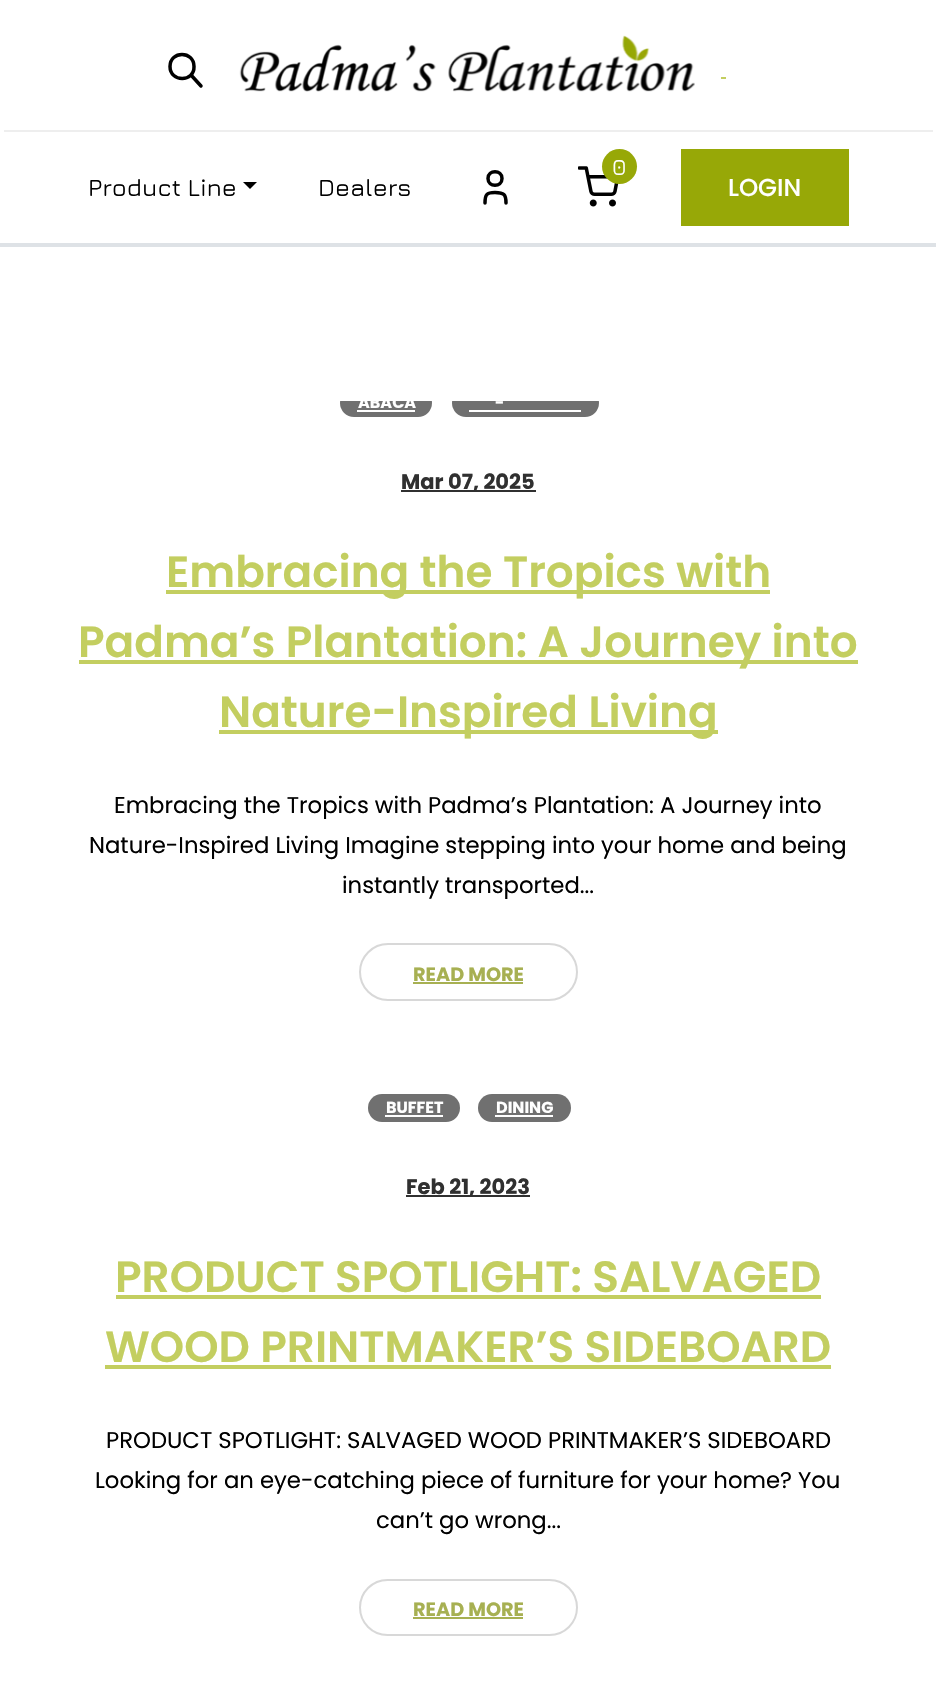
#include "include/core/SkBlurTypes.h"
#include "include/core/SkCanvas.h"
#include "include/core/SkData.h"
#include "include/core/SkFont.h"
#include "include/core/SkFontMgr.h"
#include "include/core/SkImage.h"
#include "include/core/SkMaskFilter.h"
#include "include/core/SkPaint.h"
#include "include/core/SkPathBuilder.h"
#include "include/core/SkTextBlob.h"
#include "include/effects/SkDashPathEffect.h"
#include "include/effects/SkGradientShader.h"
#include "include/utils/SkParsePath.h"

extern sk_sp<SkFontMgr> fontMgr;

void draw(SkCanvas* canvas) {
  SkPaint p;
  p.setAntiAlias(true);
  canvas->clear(SK_ColorWHITE);
  p.setColor(SkColorSetRGB(222, 226, 230));
  canvas->drawRect(SkRect::MakeLTRB(0, 243, 936, 247), p);
  p.setStyle(SkPaint::kStroke_Style);
  p.setStrokeWidth(3.5f);
  p.setStrokeCap(SkPaint::kRound_Cap);
  p.setStrokeJoin(SkPaint::kRound_Join);
  p.setColor(SK_ColorBLACK);
  canvas->drawPath(SkPathBuilder().moveTo(170, 66.5f).cubicTo(170, 82.5f, 194.5f, 82.5f, 194, 66.5f).cubicTo(194, 50.5f, 170, 50.5f, 170, 66.5f).close().moveTo(201, 86).lineTo(191, 75).detach(), p);
  canvas->drawImageRect(SkImages::DeferredFromEncodedData(SkData::MakeFromFileName("images/1.png")), SkRect::MakeLTRB(239, 35, 695, 92), SkSamplingOptions());
  p.setStyle(SkPaint::kFill_Style);
  p.setColor(SkColorSetRGB(195, 206, 96));
  canvas->drawRect(SkRect::MakeLTRB(721, 77, 726, 79), p);
  p.setColor(SkColorSetRGB(238, 238, 238));
  canvas->drawRect(SkRect::MakeLTRB(4, 130, 933, 132), p);
  canvas->drawImageRect(SkImages::DeferredFromEncodedData(SkData::MakeFromFileName("images/2.png")), SkRect::MakeLTRB(578, 166, 619, 207), SkSamplingOptions());
  p.setColor(SkColorSetRGB(151, 168, 7));
  canvas->drawCircle(619.5f, 166.5f, 17.5f, p);
  p.setColor(SK_ColorBLACK);
  canvas->drawPath(SkPathBuilder().moveTo(243, 182).lineTo(257, 182).lineTo(250, 189).close().detach(), p);
  p.setStyle(SkPaint::kStroke_Style);
  canvas->drawPath(SkPathBuilder().moveTo(488, 178.5f).cubicTo(488, 187.5f, 502, 187.5f, 502, 178.5f).cubicTo(502, 169.5f, 488, 169.5f, 488, 178.5f).close().moveTo(485, 203).cubicTo(485, 194.5f, 486.5f, 192.5f, 495, 192.5f).cubicTo(504, 192.5f, 506, 194.5f, 506, 203).detach(), p);
  p.setStyle(SkPaint::kFill_Style);
  p.setColor(SkColorSetRGB(151, 168, 7));
  canvas->drawRect(SkRect::MakeLTRB(681, 149, 849, 226), p);
  canvas->save();
  canvas->clipRect(SkRect::MakeLTRB(26, 401, 910, 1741));
  p.setColor(SkColorSetRGB(112, 112, 112));
  canvas->drawRoundRect(SkRect::MakeLTRB(340, 389, 432, 417), 14, 14, p);
  canvas->restore();
  p.setColor(SK_ColorWHITE);
  canvas->drawRect(SkRect::MakeLTRB(357, 410, 415, 412), p);
  canvas->save();
  canvas->clipRect(SkRect::MakeLTRB(26, 401, 910, 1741));
  p.setColor(SkColorSetRGB(112, 112, 112));
  canvas->drawRoundRect(SkRect::MakeLTRB(452, 389, 599, 417), 14, 14, p);
  canvas->restore();
  p.setColor(SK_ColorWHITE);
  canvas->drawRect(SkRect::MakeLTRB(469, 410, 581, 412), p);
  p.setColor(SkColorSetRGB(48, 48, 48));
  canvas->drawRect(SkRect::MakeLTRB(401, 490, 536, 492), p);
  p.setColor(SkColorSetRGB(195, 206, 96));
  canvas->drawRect(SkRect::MakeLTRB(166, 590, 770, 594), p);
  canvas->drawRect(SkRect::MakeLTRB(79, 660, 858, 664), p);
  canvas->drawRect(SkRect::MakeLTRB(219, 730, 718, 734), p);
  p.setStyle(SkPaint::kStroke_Style);
  p.setStrokeWidth(2);
  p.setStrokeCap(SkPaint::kButt_Cap);
  p.setStrokeJoin(SkPaint::kMiter_Join);
  p.setColor(SkColorSetRGB(216, 216, 216));
  canvas->drawRoundRect(SkRect::MakeLTRB(360, 944, 577, 1000), 28, 28, p);
  p.setStyle(SkPaint::kFill_Style);
  p.setColor(SkColorSetRGB(167, 176, 82));
  canvas->drawRect(SkRect::MakeLTRB(413, 982, 523, 984), p);
  p.setColor(SkColorSetRGB(112, 112, 112));
  canvas->drawRoundRect(SkRect::MakeLTRB(368, 1094, 460, 1122), 14, 14, p);
  p.setColor(SK_ColorWHITE);
  canvas->drawRect(SkRect::MakeLTRB(385, 1115, 443, 1117), p);
  p.setColor(SkColorSetRGB(112, 112, 112));
  canvas->drawRoundRect(SkRect::MakeLTRB(478, 1094, 571, 1122), 14, 14, p);
  p.setColor(SK_ColorWHITE);
  canvas->drawRect(SkRect::MakeLTRB(495, 1115, 553, 1117), p);
  p.setColor(SkColorSetRGB(48, 48, 48));
  canvas->drawRect(SkRect::MakeLTRB(406, 1195, 530, 1197), p);
  p.setColor(SkColorSetRGB(195, 206, 96));
  canvas->drawRect(SkRect::MakeLTRB(116, 1295, 821, 1299), p);
  canvas->drawRect(SkRect::MakeLTRB(105, 1365, 831, 1369), p);
  p.setStyle(SkPaint::kStroke_Style);
  p.setColor(SkColorSetRGB(216, 216, 216));
  canvas->drawRoundRect(SkRect::MakeLTRB(360, 1580, 577, 1635), 27.5f, 27.5f, p);
  p.setStyle(SkPaint::kFill_Style);
  p.setColor(SkColorSetRGB(167, 176, 82));
  canvas->drawRect(SkRect::MakeLTRB(413, 1617, 523, 1619), p);
  SkFont font1(fontMgr->matchFamilyStyle("Jura", SkFontStyle(500, SkFontStyle::kNormal_Width, SkFontStyle::kUpright_Slant)), 22.75f);
  font1.setSubpixel(true);
  p.setColor(SK_ColorWHITE);
  canvas->drawString("0", 612, 175, font1, p);
  SkFont font2(fontMgr->matchFamilyStyle("Jura", SkFontStyle(500, SkFontStyle::kNormal_Width, SkFontStyle::kUpright_Slant)), 24.5f);
  font2.setSubpixel(true);
  p.setColor(SK_ColorBLACK);
  canvas->drawString("Product Line", 88, 196, font2, p);
  canvas->drawString("Dealers", 318, 196, font2, p);
  SkFont font3(fontMgr->matchFamilyStyle("Poppins", SkFontStyle(500, SkFontStyle::kNormal_Width, SkFontStyle::kUpright_Slant)), 24.5f);
  font3.setSubpixel(true);
  p.setColor(SK_ColorWHITE);
  canvas->drawString("LOGIN", 728, 196, font3, p);
  canvas->save();
  canvas->clipRect(SkRect::MakeLTRB(26, 401, 910, 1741));
  SkFont font4(fontMgr->matchFamilyStyle("Poppins", SkFontStyle::Bold()), 16);
  font4.setSubpixel(true);
  canvas->drawString("ABACA", 358, 408, font4, p);
  canvas->restore();
  canvas->drawString("-", 495, 408, font4, p);
  SkFont font5(fontMgr->matchFamilyStyle("Poppins", SkFontStyle::Bold()), 21);
  font5.setSubpixel(true);
  p.setColor(SkColorSetRGB(48, 48, 48));
  canvas->drawString("Mar 07, 2025", 401, 489, font5, p);
  SkFont font6(fontMgr->matchFamilyStyle("Poppins", SkFontStyle(600, SkFontStyle::kNormal_Width, SkFontStyle::kUpright_Slant)), 43.75f);
  font6.setSubpixel(true);
  p.setColor(SkColorSetRGB(195, 206, 96));
  canvas->drawString("Embracing the Tropics with", 166, 587, font6, p);
  canvas->drawString("Padma’s Plantation: A Journey into", 78, 657, font6, p);
  canvas->drawString("Nature-Inspired Living", 219, 727, font6, p);
  SkFont font7(fontMgr->matchFamilyStyle("Poppins", SkFontStyle::Normal()), 22.75f);
  font7.setSubpixel(true);
  p.setColor(SK_ColorBLACK);
  canvas->drawString("Embracing the Tropics with Padma’s Plantation: A Journey into", 114, 813, font7, p);
  canvas->drawString("Nature-Inspired Living Imagine stepping into your home and being", 89, 853, font7, p);
  canvas->drawString("instantly transported...", 342, 893, font7, p);
  SkFont font8(fontMgr->matchFamilyStyle("Poppins", SkFontStyle::Bold()), 19.25f);
  font8.setSubpixel(true);
  p.setColor(SkColorSetRGB(167, 176, 82));
  canvas->drawString("READ MORE", 413, 981, font8, p);
  p.setColor(SK_ColorWHITE);
  canvas->drawString("BUFFET", 386, 1113, font4, p);
  canvas->drawString("DINING", 496, 1113, font4, p);
  p.setColor(SkColorSetRGB(48, 48, 48));
  canvas->drawString("Feb 21, 2023", 406, 1194, font5, p);
  p.setColor(SkColorSetRGB(195, 206, 96));
  canvas->drawString("PRODUCT SPOTLIGHT: SALVAGED", 115, 1292, font6, p);
  canvas->drawString("WOOD PRINTMAKER’S SIDEBOARD", 105, 1362, font6, p);
  p.setColor(SK_ColorBLACK);
  canvas->drawString("PRODUCT SPOTLIGHT: SALVAGED WOOD PRINTMAKER’S SIDEBOARD", 106, 1448, font7, p);
  canvas->drawString("Looking for an eye-catching piece of furniture for your home? You", 95, 1488, font7, p);
  canvas->drawString("can’t go wrong...", 376, 1528, font7, p);
  p.setColor(SkColorSetRGB(167, 176, 82));
  canvas->drawString("READ MORE", 413, 1616, font8, p);
}
